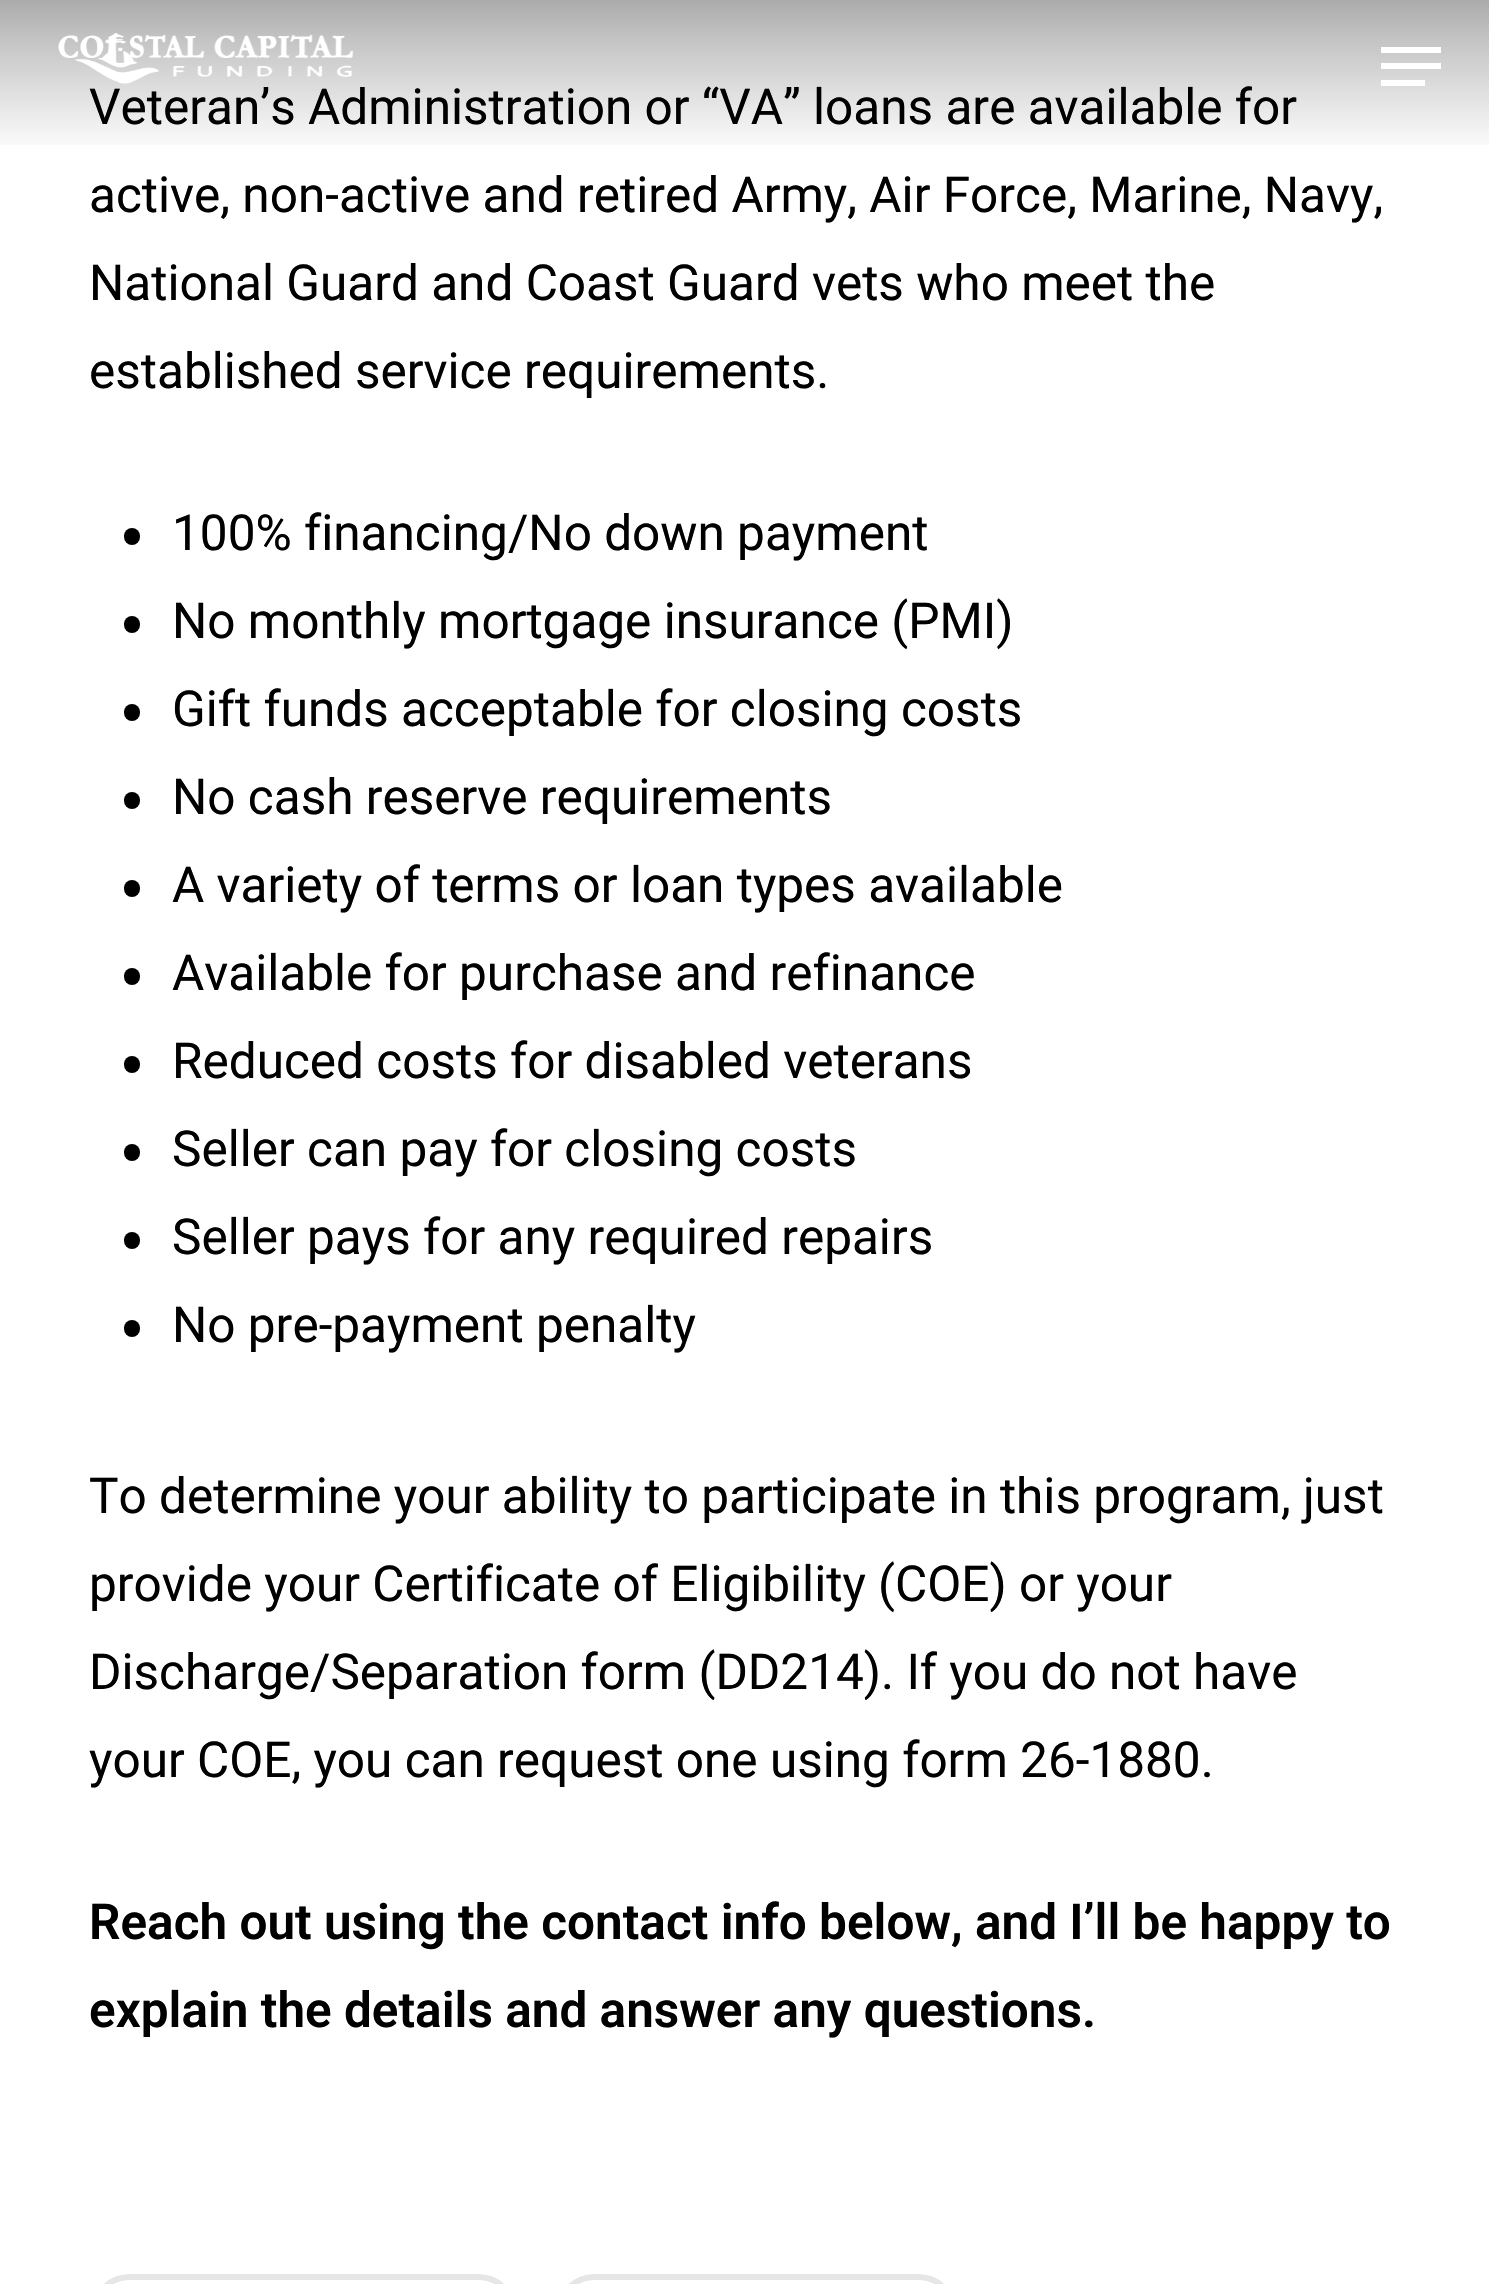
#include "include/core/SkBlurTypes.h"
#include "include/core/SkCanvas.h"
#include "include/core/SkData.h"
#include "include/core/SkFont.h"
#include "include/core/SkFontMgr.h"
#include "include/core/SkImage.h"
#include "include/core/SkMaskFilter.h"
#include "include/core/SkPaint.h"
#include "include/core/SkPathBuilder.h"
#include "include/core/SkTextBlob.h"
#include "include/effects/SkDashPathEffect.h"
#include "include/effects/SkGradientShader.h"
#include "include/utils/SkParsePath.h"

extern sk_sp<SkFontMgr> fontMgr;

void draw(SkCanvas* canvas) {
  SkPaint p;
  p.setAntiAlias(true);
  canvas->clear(SK_ColorWHITE);
  p.setColor(SK_ColorBLACK);
  canvas->drawRoundRect(SkRect::MakeLTRB(124, 528, 140, 545), 8, 8, p);
  canvas->drawRoundRect(SkRect::MakeLTRB(124, 616, 140, 633), 8, 8, p);
  canvas->drawRoundRect(SkRect::MakeLTRB(124, 704, 140, 721), 8, 8, p);
  canvas->drawRoundRect(SkRect::MakeLTRB(124, 792, 140, 809), 8, 8, p);
  canvas->drawRoundRect(SkRect::MakeLTRB(124, 880, 140, 897), 8, 8, p);
  canvas->drawRoundRect(SkRect::MakeLTRB(124, 968, 140, 985), 8, 8, p);
  canvas->drawRoundRect(SkRect::MakeLTRB(124, 1056, 140, 1073), 8, 8, p);
  canvas->drawRoundRect(SkRect::MakeLTRB(124, 1144, 140, 1161), 8, 8, p);
  canvas->drawRoundRect(SkRect::MakeLTRB(124, 1232, 140, 1249), 8, 8, p);
  canvas->drawRoundRect(SkRect::MakeLTRB(124, 1320, 140, 1337), 8, 8, p);
  p.setStyle(SkPaint::kStroke_Style);
  p.setStrokeWidth(6);
  p.setColor(SkColorSetRGB(230, 230, 230));
  canvas->drawRoundRect(SkRect::MakeLTRB(94, 2277, 514, 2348), 57.5f, 57.5f, p);
  canvas->drawRoundRect(SkRect::MakeLTRB(559, 2277, 954, 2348), 57.5f, 57.5f, p);
  SkFont font1(fontMgr->matchFamilyStyle("Roboto", SkFontStyle::Normal()), 49.5f);
  font1.setSubpixel(true);
  p.setStyle(SkPaint::kFill_Style);
  p.setColor(SK_ColorBLACK);
  canvas->drawString("Veteran’s Administration or “VA” loans are available for", 89, 124, font1, p);
  {
    const SkColor colors[] = {SkColorSetARGB(0, 255, 255, 255), SkColorSetARGB(0, 0, 0, 0), SkColorSetARGB(10, 0, 0, 0), SkColorSetARGB(59, 0, 0, 0), SkColorSetARGB(84, 0, 0, 0)};
    const float stops[] = {0, 0.01f, 0.16f, 0.75f, 1};
    const SkPoint ends[] = {{745, 160}, {745, 0}};
    p.setShader(SkGradientShader::MakeLinear(ends, colors, stops, 5, SkTileMode::kClamp));
    p.setAlpha(255);
  }
  canvas->drawRect(SkRect::MakeLTRB(0, 0, 1489, 145), p);
  p.setShader(nullptr);
  p.setColor(SK_ColorWHITE);
  canvas->drawRect(SkRect::MakeLTRB(1381, 63, 1441, 69), p);
  canvas->drawRect(SkRect::MakeLTRB(1381, 47, 1441, 53), p);
  canvas->drawRect(SkRect::MakeLTRB(1381, 80, 1425, 86), p);
  canvas->drawImageRect(SkImages::DeferredFromEncodedData(SkData::MakeFromFileName("images/1.png")), SkRect::MakeLTRB(58, 33, 354, 84), SkSamplingOptions());
  p.setColor(SK_ColorBLACK);
  canvas->drawString("active, non-active and retired Army, Air Force, Marine, Navy,", 89, 212, font1, p);
  canvas->drawString("National Guard and Coast Guard vets who meet the", 89, 300, font1, p);
  canvas->drawString("established service requirements.", 89, 388, font1, p);
  canvas->drawString("100% financing/No down payment", 172, 550, font1, p);
  canvas->drawString("No monthly mortgage insurance (PMI)", 172, 638, font1, p);
  canvas->drawString("Gift funds acceptable for closing costs", 172, 726, font1, p);
  canvas->drawString("No cash reserve requirements", 172, 814, font1, p);
  canvas->drawString("A variety of terms or loan types available", 172, 902, font1, p);
  canvas->drawString("Available for purchase and refinance", 172, 990, font1, p);
  canvas->drawString("Reduced costs for disabled veterans", 172, 1078, font1, p);
  canvas->drawString("Seller can pay for closing costs", 172, 1166, font1, p);
  canvas->drawString("Seller pays for any required repairs", 172, 1254, font1, p);
  canvas->drawString("No pre-payment penalty", 172, 1342, font1, p);
  canvas->drawString("To determine your ability to participate in this program, just", 89, 1513, font1, p);
  canvas->drawString("provide your Certificate of Eligibility (COE) or your", 89, 1601, font1, p);
  canvas->drawString("Discharge/Separation form (DD214). If you do not have", 89, 1689, font1, p);
  canvas->drawString("your COE, you can request one using form 26-1880.", 89, 1777, font1, p);
  SkFont font2(fontMgr->matchFamilyStyle("Roboto", SkFontStyle(600, SkFontStyle::kNormal_Width, SkFontStyle::kUpright_Slant)), 49.5f);
  font2.setSubpixel(true);
  canvas->drawString("Reach out using the contact info below, and I’ll be happy to", 89, 1939, font2, p);
  canvas->drawString("explain the details and answer any questions.", 89, 2027, font2, p);
}
